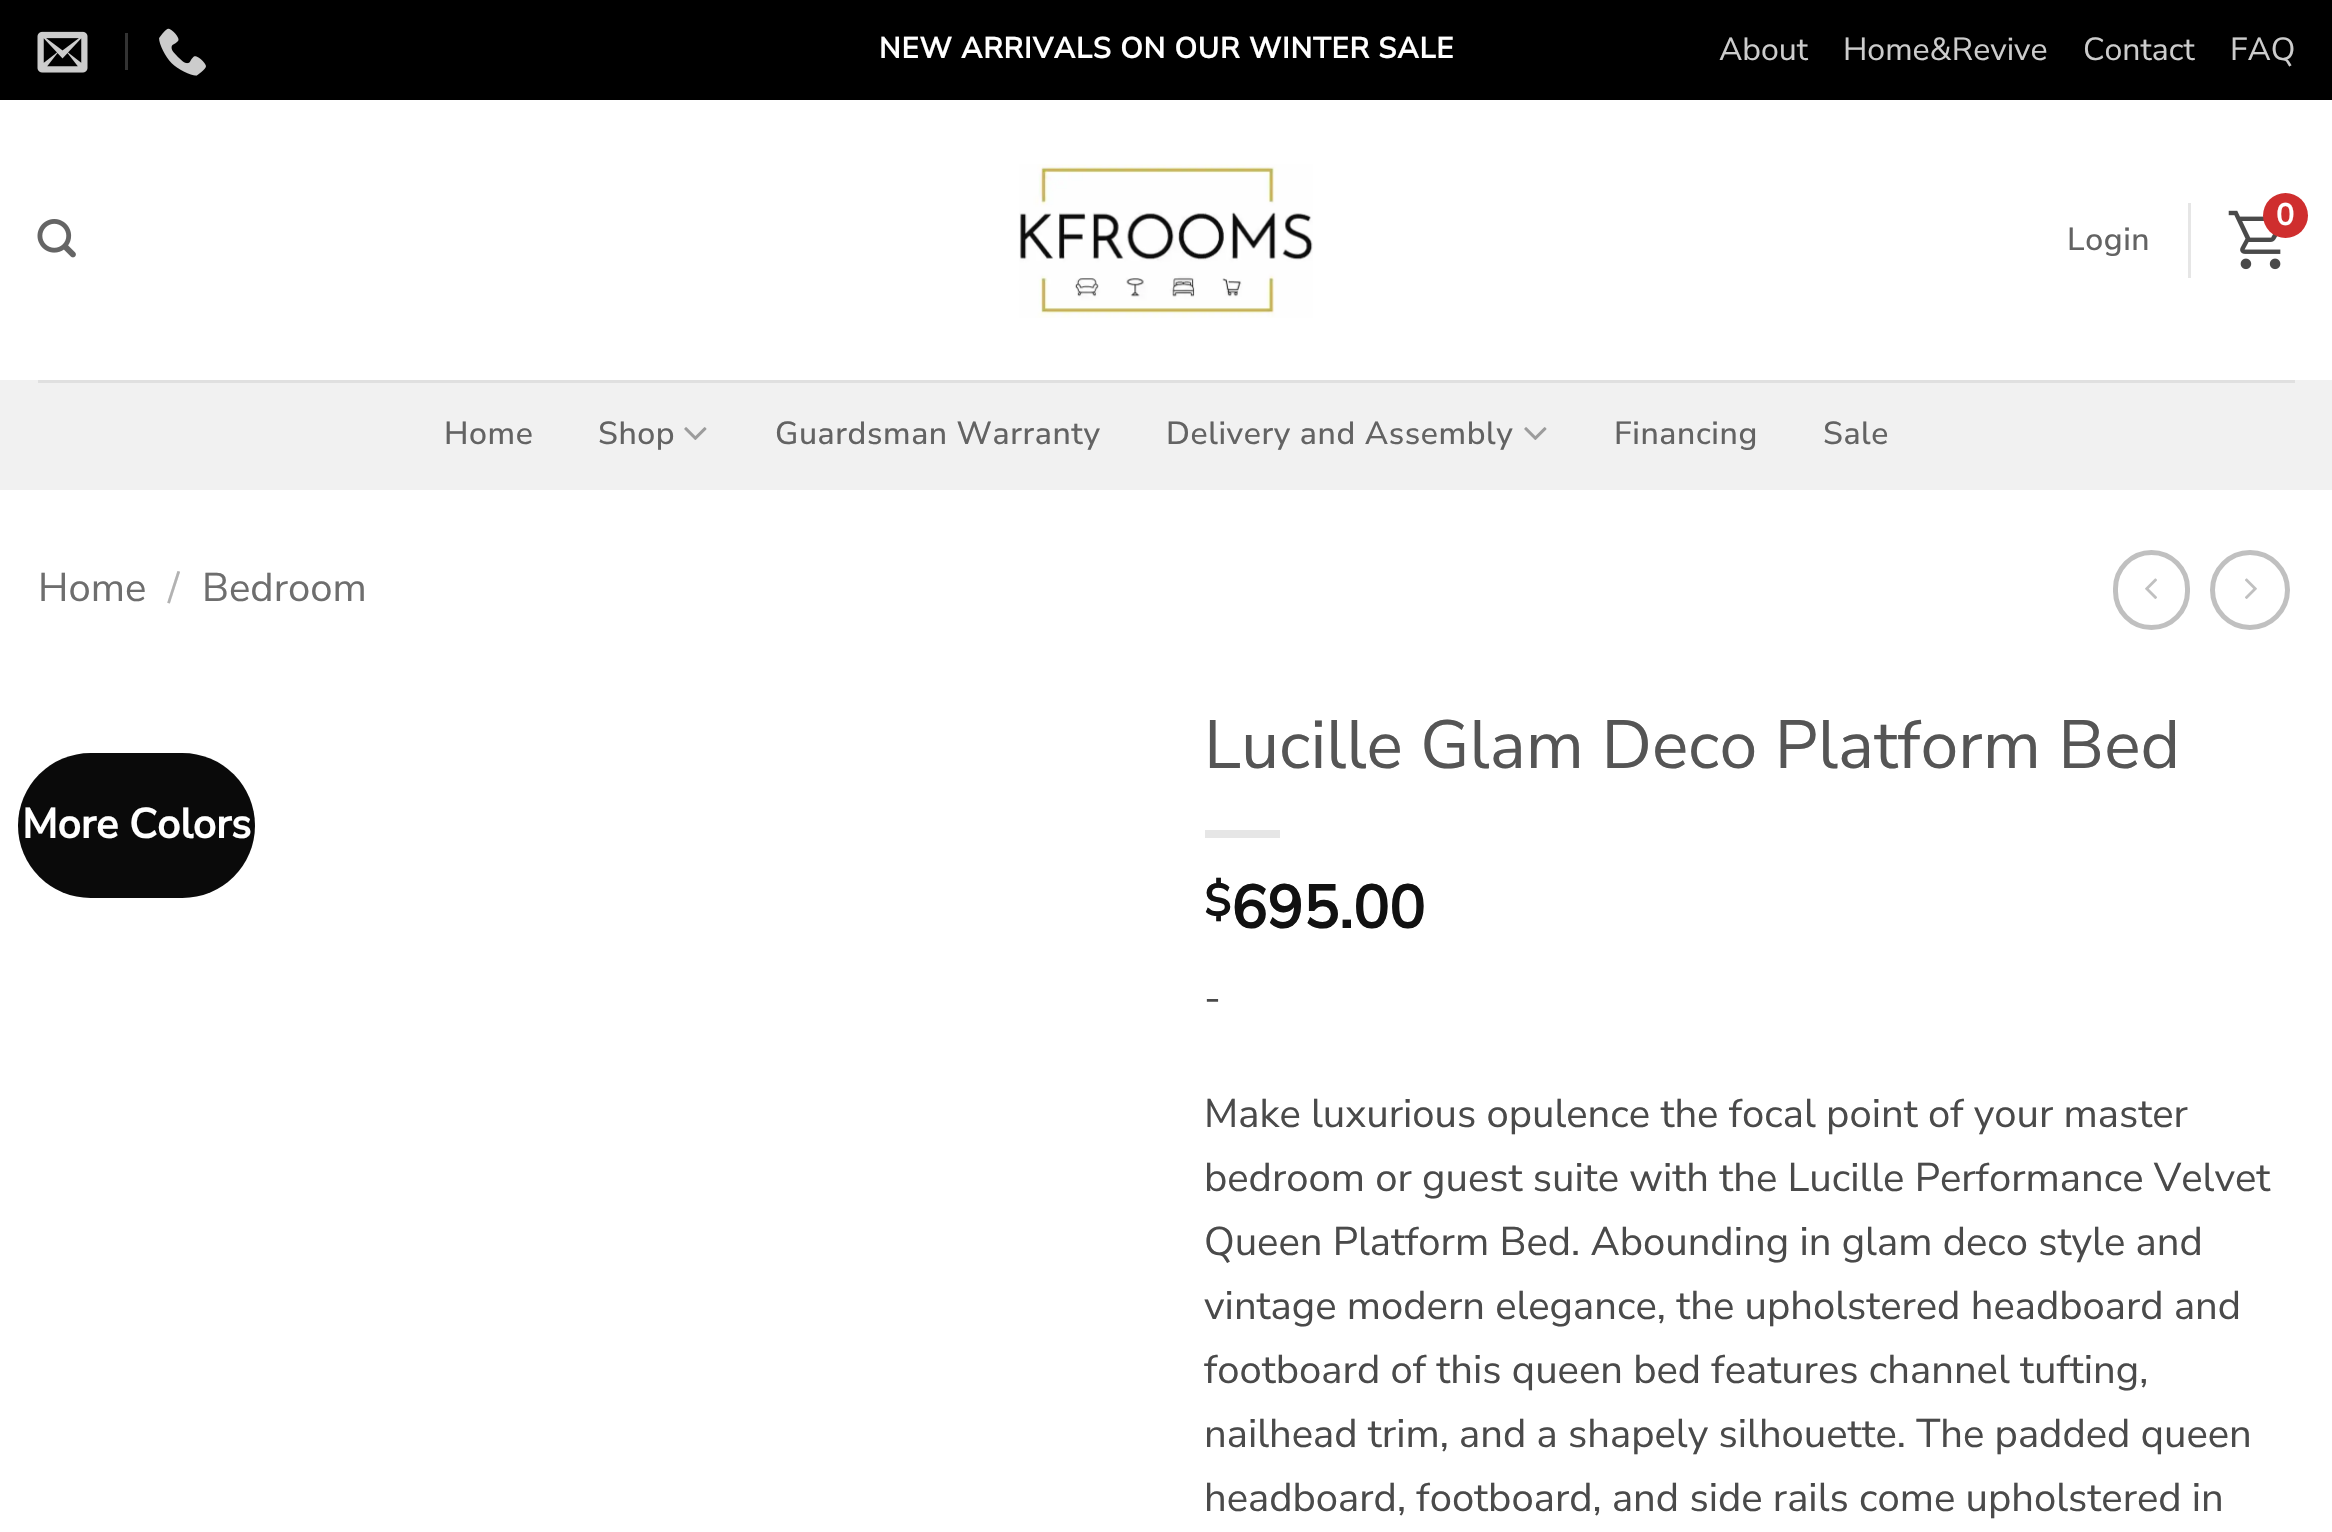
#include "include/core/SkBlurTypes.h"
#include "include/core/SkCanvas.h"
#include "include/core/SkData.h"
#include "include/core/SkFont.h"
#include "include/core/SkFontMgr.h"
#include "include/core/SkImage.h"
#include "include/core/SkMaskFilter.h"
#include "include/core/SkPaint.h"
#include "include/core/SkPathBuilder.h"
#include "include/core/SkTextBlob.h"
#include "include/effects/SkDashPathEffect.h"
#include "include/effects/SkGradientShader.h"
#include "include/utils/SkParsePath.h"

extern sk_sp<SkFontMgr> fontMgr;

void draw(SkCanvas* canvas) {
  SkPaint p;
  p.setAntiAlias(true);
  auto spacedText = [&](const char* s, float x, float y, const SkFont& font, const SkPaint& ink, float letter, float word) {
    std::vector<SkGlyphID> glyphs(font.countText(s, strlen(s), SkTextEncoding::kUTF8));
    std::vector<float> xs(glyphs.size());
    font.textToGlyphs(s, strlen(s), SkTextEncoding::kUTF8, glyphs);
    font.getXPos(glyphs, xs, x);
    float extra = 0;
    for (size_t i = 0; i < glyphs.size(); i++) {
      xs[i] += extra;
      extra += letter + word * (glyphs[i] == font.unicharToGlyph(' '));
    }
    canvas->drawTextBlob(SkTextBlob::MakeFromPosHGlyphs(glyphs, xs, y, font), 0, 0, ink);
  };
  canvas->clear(SK_ColorWHITE);
  p.setColor(SK_ColorBLACK);
  canvas->drawRect(SkRect::MakeLTRB(0, 0, 2332, 100), p);
  canvas->drawImageRect(SkImages::DeferredFromEncodedData(SkData::MakeFromFileName("images/1.png")), SkRect::MakeLTRB(37, 31, 88, 73), SkSamplingOptions());
  p.setColor(SkColorSetRGB(51, 51, 51));
  canvas->drawRect(SkRect::MakeLTRB(125, 33, 128, 70), p);
  canvas->drawImageRect(SkImages::DeferredFromEncodedData(SkData::MakeFromFileName("images/2.png")), SkRect::MakeLTRB(159, 28, 206, 76), SkSamplingOptions());
  canvas->drawImageRect(SkImages::DeferredFromEncodedData(SkData::MakeFromFileName("images/3.png")), SkRect::MakeLTRB(37, 219, 76, 258), SkSamplingOptions());
  canvas->drawImageRect(SkImages::DeferredFromEncodedData(SkData::MakeFromFileName("images/4.png")), SkRect::MakeLTRB(1019, 164, 1313, 318), SkSamplingOptions());
  p.setColor(SkColorSetRGB(230, 230, 230));
  canvas->drawRect(SkRect::MakeLTRB(2188, 203, 2191, 278), p);
  canvas->drawImageRect(SkImages::DeferredFromEncodedData(SkData::MakeFromFileName("images/5.png")), SkRect::MakeLTRB(2228, 210, 2281, 270), SkSamplingOptions());
  p.setColor(SkColorSetRGB(207, 46, 46));
  canvas->drawCircle(2285.5f, 215.5f, 22.5f, p);
  p.setColor(SkColorSetRGB(241, 241, 241));
  canvas->drawRect(SkRect::MakeLTRB(0, 380, 2332, 490), p);
  p.setColor(SkColorSetRGB(224, 224, 224));
  canvas->drawRect(SkRect::MakeLTRB(38, 380, 2295, 383), p);
  canvas->drawImageRect(SkImages::DeferredFromEncodedData(SkData::MakeFromFileName("images/6.png")), SkRect::MakeLTRB(684, 427, 707, 440), SkSamplingOptions());
  canvas->drawImageRect(SkImages::DeferredFromEncodedData(SkData::MakeFromFileName("images/6.png")), SkRect::MakeLTRB(1524, 427, 1547, 440), SkSamplingOptions());
  p.setStyle(SkPaint::kStroke_Style);
  p.setStrokeWidth(5);
  p.setColor(SkColorSetRGB(192, 192, 192));
  canvas->drawRoundRect(SkRect::MakeLTRB(2115.5f, 552.5f, 2187.5f, 627.5f), 36, 36, p);
  canvas->drawImageRect(SkImages::DeferredFromEncodedData(SkData::MakeFromFileName("images/7.png")), SkRect::MakeLTRB(2145, 578, 2157, 599), SkSamplingOptions());
  canvas->drawCircle(2250, 590, 37.5f, p);
  canvas->drawImageRect(SkImages::DeferredFromEncodedData(SkData::MakeFromFileName("images/8.png")), SkRect::MakeLTRB(2245, 578, 2257, 599), SkSamplingOptions());
  p.setStyle(SkPaint::kFill_Style);
  p.setColor(SkColorSetRGB(10, 10, 10));
  canvas->drawRoundRect(SkRect::MakeLTRB(18, 753, 255, 898), 72.5f, 72.5f, p);
  p.setColor(SkColorSetRGB(230, 230, 230));
  canvas->drawRect(SkRect::MakeLTRB(1205, 830, 1280, 838), p);
  SkFont font1(fontMgr->matchFamilyStyle("Nunito Sans", SkFontStyle::Bold()), 29.1f);
  font1.setSubpixel(true);
  p.setColor(SK_ColorWHITE);
  spacedText("NEW ARRIVALS ON OUR WINTER SALE", 879, 58, font1, p, 0.9f, 0);
  SkFont font2(fontMgr->matchFamilyStyle("Nunito Sans", SkFontStyle::Normal()), 32);
  font2.setSubpixel(true);
  p.setColor(SkColorSetRGB(204, 204, 204));
  canvas->drawString("About", 1719, 60, font2, p);
  canvas->drawString("Home&Revive", 1843, 60, font2, p);
  canvas->drawString("Contact", 2083, 60, font2, p);
  canvas->drawString("FAQ", 2230, 60, font2, p);
  SkFont font3(fontMgr->matchFamilyStyle("Nunito Sans", SkFontStyle::Bold()), 30);
  font3.setSubpixel(true);
  p.setColor(SK_ColorWHITE);
  canvas->drawString("0", 2276, 225, font3, p);
  SkFont font4(fontMgr->matchFamilyStyle("Nunito Sans", SkFontStyle(500, SkFontStyle::kNormal_Width, SkFontStyle::kUpright_Slant)), 32);
  font4.setSubpixel(true);
  p.setColor(SkColorSetRGB(99, 99, 99));
  spacedText("Login", 2067, 250, font4, p, 0.6f, 0);
  spacedText("Home", 444, 444, font4, p, 0.6f, 0);
  spacedText("Shop", 598, 444, font4, p, 0.6f, 0);
  spacedText("Guardsman Warranty", 775, 444, font4, p, 0.6f, 0);
  spacedText("Delivery and Assembly", 1166, 444, font4, p, 0.6f, 0);
  spacedText("Financing", 1614, 444, font4, p, 0.6f, 0);
  spacedText("Sale", 1823, 444, font4, p, 0.6f, 0);
  SkFont font5(fontMgr->matchFamilyStyle("Nunito Sans", SkFontStyle::Normal()), 40);
  font5.setSubpixel(true);
  p.setColor(SkColorSetRGB(110, 110, 110));
  canvas->drawString("Home", 38, 601, font5, p);
  p.setColor(SkColorSetRGB(178, 178, 178));
  canvas->drawString("/", 168, 601, font5, p);
  p.setColor(SkColorSetRGB(110, 110, 110));
  canvas->drawString("Bedroom", 202, 601, font5, p);
  SkFont font6(fontMgr->matchFamilyStyle("Nunito Sans", SkFontStyle::Bold()), 41.5f);
  font6.setSubpixel(true);
  p.setColor(SK_ColorWHITE);
  canvas->drawString("More Colors", 22, 838, font6, p);
  SkFont font7(fontMgr->matchFamilyStyle("Nunito Sans", SkFontStyle::Normal()), 68);
  font7.setSubpixel(true);
  p.setColor(SkColorSetRGB(85, 85, 85));
  canvas->drawString("Lucille Glam Deco Platform Bed", 1204, 768, font7, p);
  SkFont font8(fontMgr->matchFamilyStyle("Nunito Sans", SkFontStyle::Bold()), 45);
  font8.setSubpixel(true);
  p.setColor(SkColorSetRGB(17, 17, 17));
  canvas->drawString("$", 1204, 916, font8, p);
  SkFont font9(fontMgr->matchFamilyStyle("Nunito Sans", SkFontStyle::Bold()), 60);
  font9.setSubpixel(true);
  canvas->drawString("695.00", 1231, 928, font9, p);
  p.setColor(SkColorSetRGB(74, 74, 74));
  canvas->drawString("-", 1204, 1011, font5, p);
  canvas->drawString("Make luxurious opulence the focal point of your master", 1204, 1127, font5, p);
  canvas->drawString("bedroom or guest suite with the Lucille Performance Velvet", 1204, 1191, font5, p);
  canvas->drawString("Queen Platform Bed. Abounding in glam deco style and", 1204, 1255, font5, p);
  canvas->drawString("vintage modern elegance, the upholstered headboard and", 1204, 1319, font5, p);
  canvas->drawString("footboard of this queen bed features channel tufting,", 1204, 1383, font5, p);
  canvas->drawString("nailhead trim, and a shapely silhouette. The padded queen", 1204, 1447, font5, p);
  canvas->drawString("headboard, footboard, and side rails come upholstered in", 1204, 1511, font5, p);
}
